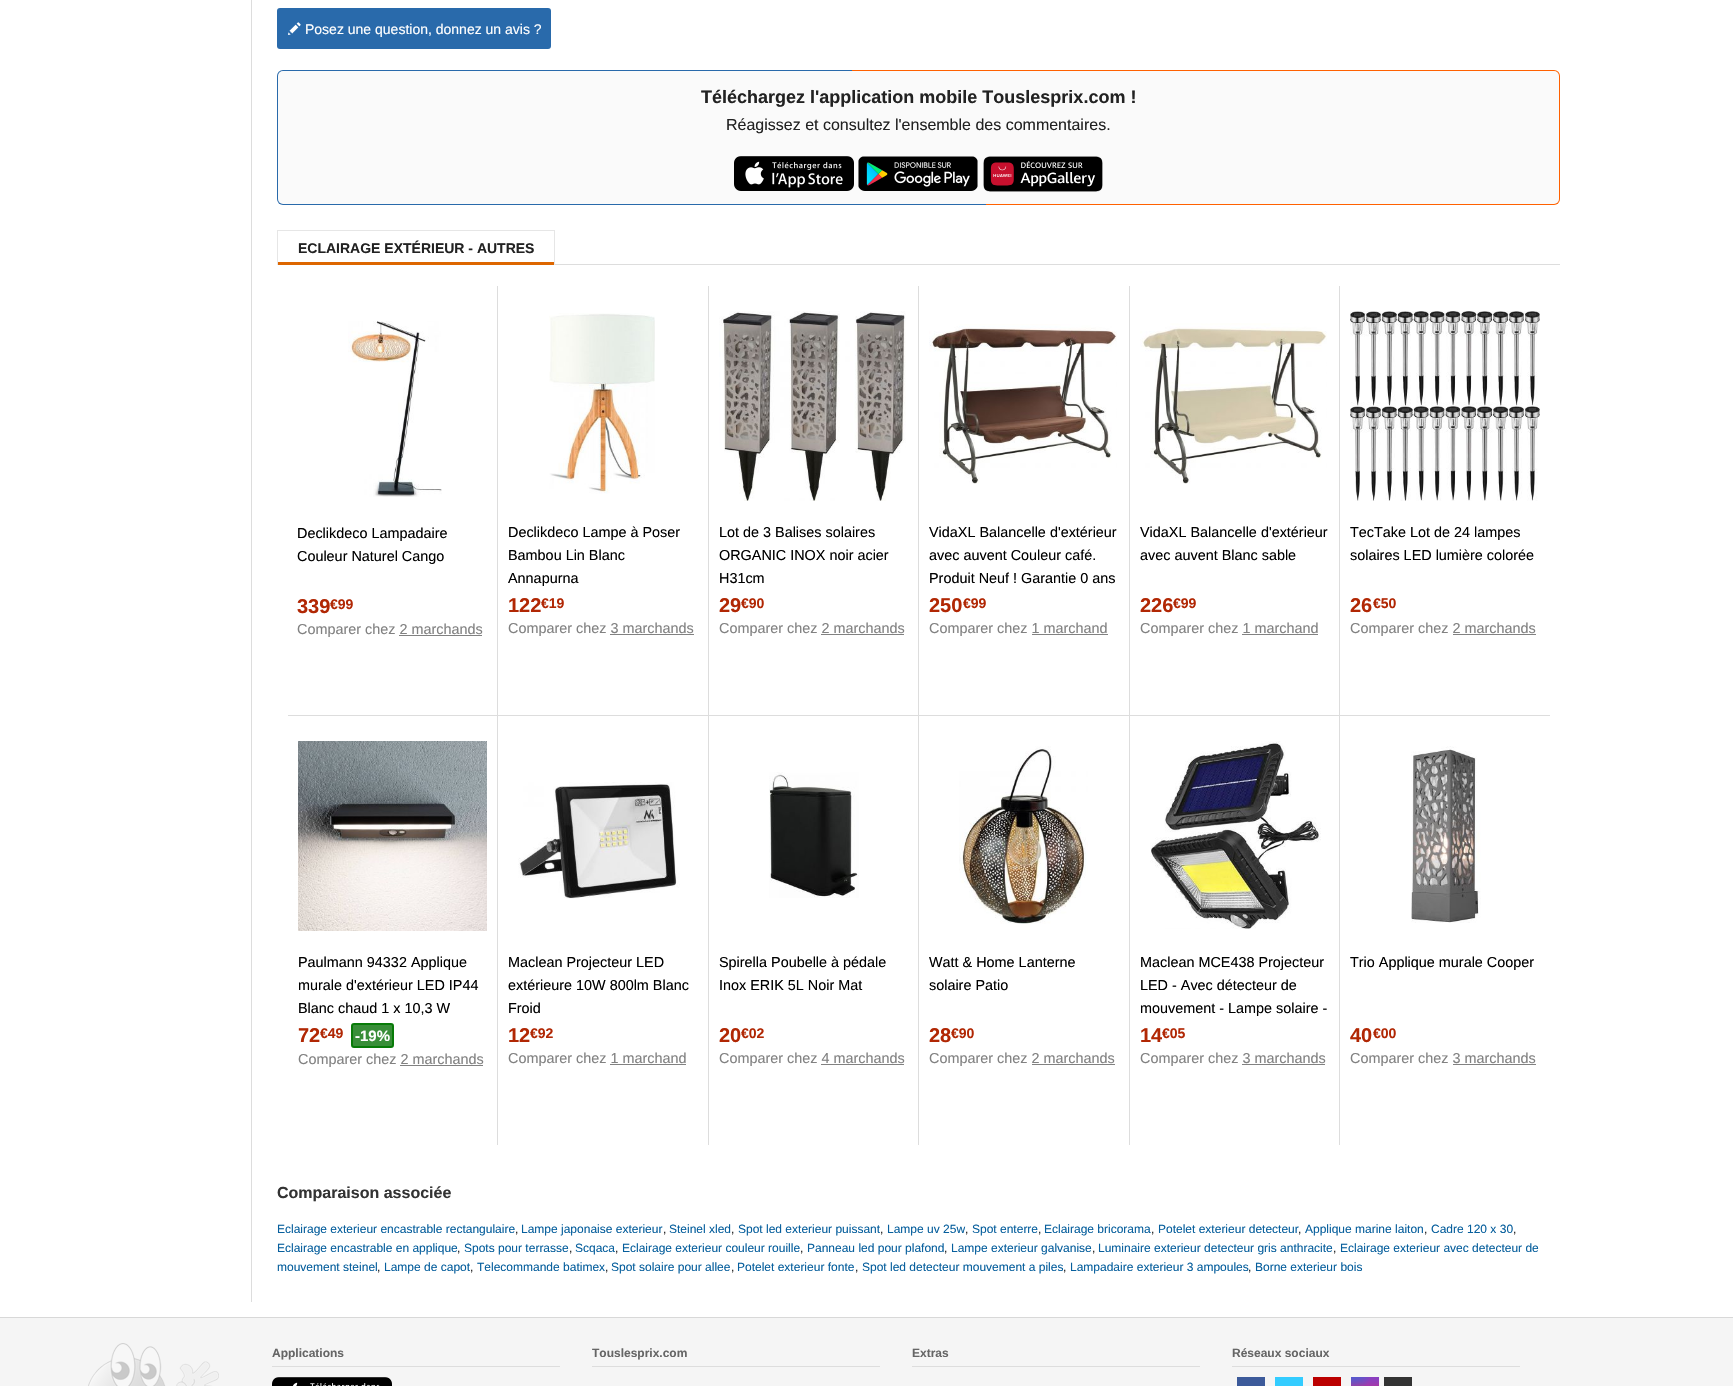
#include "include/core/SkBlurTypes.h"
#include "include/core/SkCanvas.h"
#include "include/core/SkData.h"
#include "include/core/SkFont.h"
#include "include/core/SkFontMgr.h"
#include "include/core/SkImage.h"
#include "include/core/SkMaskFilter.h"
#include "include/core/SkPaint.h"
#include "include/core/SkPathBuilder.h"
#include "include/core/SkTextBlob.h"
#include "include/effects/SkDashPathEffect.h"
#include "include/effects/SkGradientShader.h"
#include "include/utils/SkParsePath.h"

extern sk_sp<SkFontMgr> fontMgr;

void draw(SkCanvas* canvas) {
  SkPaint p;
  p.setAntiAlias(true);
  canvas->clear(SK_ColorWHITE);
  p.setColor(SkColorSetRGB(221, 221, 221));
  canvas->drawRect(SkRect::MakeLTRB(251, 0, 252, 1302), p);
  p.setColor(SkColorSetRGB(41, 106, 171));
  canvas->drawRoundRect(SkRect::MakeLTRB(277, 8, 551, 49), 3, 3, p);
  canvas->drawImageRect(SkImages::DeferredFromEncodedData(SkData::MakeFromFileName("images/1.png")), SkRect::MakeLTRB(288, 22, 301, 35), SkSamplingOptions());
  {
    const SkColor colors[] = {SkColorSetRGB(41, 106, 171), SkColorSetRGB(255, 97, 0)};
    const float stops[] = {0.5f, 0.5f};
    const SkPoint ends[] = {{564, 492}, {1273, -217}};
    p.setShader(SkGradientShader::MakeLinear(ends, colors, stops, 2, SkTileMode::kClamp));
    p.setAlpha(255);
  }
  canvas->drawRoundRect(SkRect::MakeLTRB(277, 70, 1560, 205), 6, 6, p);
  p.setShader(nullptr);
  p.setColor(SkColorSetRGB(250, 250, 250));
  canvas->drawRoundRect(SkRect::MakeLTRB(278, 71, 1559, 204), 5, 5, p);
  canvas->drawImageRect(SkImages::DeferredFromEncodedData(SkData::MakeFromFileName("images/2.png")), SkRect::MakeLTRB(734, 156, 854, 191), SkSamplingOptions());
  canvas->drawImageRect(SkImages::DeferredFromEncodedData(SkData::MakeFromFileName("images/3.png")), SkRect::MakeLTRB(858, 156, 978, 191), SkSamplingOptions());
  canvas->drawImageRect(SkImages::DeferredFromEncodedData(SkData::MakeFromFileName("images/4.png")), SkRect::MakeLTRB(983, 156, 1103, 192), SkSamplingOptions());
  p.setColor(SkColorSetRGB(221, 221, 221));
  canvas->drawRect(SkRect::MakeLTRB(555, 264, 1560, 265), p);
  p.setColor(SkColorSetRGB(221, 102, 0));
  canvas->drawRect(SkRect::MakeLTRB(278, 262, 554, 265), p);
  p.setColor(SkColorSetRGB(230, 230, 230));
  canvas->drawRect(SkRect::MakeLTRB(277, 230, 555, 231), p);
  canvas->drawRect(SkRect::MakeLTRB(554, 230, 555, 265), p);
  canvas->drawRect(SkRect::MakeLTRB(277, 230, 278, 265), p);
  p.setColor(SkColorSetRGB(221, 221, 221));
  canvas->drawRect(SkRect::MakeLTRB(497, 285, 498, 715), p);
  canvas->drawRect(SkRect::MakeLTRB(708, 285, 709, 715), p);
  canvas->drawRect(SkRect::MakeLTRB(918, 285, 919, 715), p);
  canvas->drawRect(SkRect::MakeLTRB(1129, 285, 1130, 715), p);
  canvas->drawRect(SkRect::MakeLTRB(1339, 285, 1340, 715), p);
  p.setColor(SK_ColorWHITE);
  canvas->drawRect(SkRect::MakeLTRB(497, 285, 1340, 286), p);
  canvas->drawImageRect(SkImages::DeferredFromEncodedData(SkData::MakeFromFileName("images/5.png")), SkRect::MakeLTRB(348, 321, 442, 497), SkSamplingOptions());
  p.setColor(SkColorSetRGB(129, 129, 129));
  canvas->drawRect(SkRect::MakeLTRB(399, 635, 482, 636), p);
  canvas->drawImageRect(SkImages::DeferredFromEncodedData(SkData::MakeFromFileName("images/6.png")), SkRect::MakeLTRB(549, 313, 655, 494), SkSamplingOptions());
  canvas->drawRect(SkRect::MakeLTRB(610, 634, 694, 635), p);
  canvas->drawImageRect(SkImages::DeferredFromEncodedData(SkData::MakeFromFileName("images/7.png")), SkRect::MakeLTRB(719, 311, 906, 501), SkSamplingOptions());
  canvas->drawRect(SkRect::MakeLTRB(821, 634, 904, 635), p);
  canvas->drawImageRect(SkImages::DeferredFromEncodedData(SkData::MakeFromFileName("images/8.png")), SkRect::MakeLTRB(929, 324, 1117, 484), SkSamplingOptions());
  canvas->drawRect(SkRect::MakeLTRB(1032, 634, 1108, 635), p);
  canvas->drawImageRect(SkImages::DeferredFromEncodedData(SkData::MakeFromFileName("images/9.png")), SkRect::MakeLTRB(1140, 323, 1327, 484), SkSamplingOptions());
  canvas->drawRect(SkRect::MakeLTRB(1242, 634, 1318, 635), p);
  canvas->drawImageRect(SkImages::DeferredFromEncodedData(SkData::MakeFromFileName("images/10.png")), SkRect::MakeLTRB(1350, 311, 1540, 501), SkSamplingOptions());
  canvas->drawRect(SkRect::MakeLTRB(1453, 634, 1536, 635), p);
  p.setColor(SkColorSetRGB(221, 221, 221));
  canvas->drawRect(SkRect::MakeLTRB(287, 715, 1550, 716), p);
  p.setColor(SK_ColorWHITE);
  canvas->drawRect(SkRect::MakeLTRB(287, 715, 288, 716), p);
  canvas->drawImageRect(SkImages::DeferredFromEncodedData(SkData::MakeFromFileName("images/11.png")), SkRect::MakeLTRB(298, 741, 487, 931), SkSamplingOptions());
  p.setColor(SkColorSetRGB(56, 142, 56));
  canvas->drawRoundRect(SkRect::MakeLTRB(352, 1024, 393, 1047), 2, 2, p);
  p.setStyle(SkPaint::kStroke_Style);
  p.setStrokeWidth(2);
  p.setColor(SkColorSetRGB(8, 123, 8));
  canvas->drawRoundRect(SkRect::MakeLTRB(352, 1024, 393, 1047), 2, 2, p);
  p.setStyle(SkPaint::kFill_Style);
  p.setColor(SkColorSetRGB(129, 129, 129));
  canvas->drawRect(SkRect::MakeLTRB(400, 1065, 483, 1066), p);
  p.setColor(SkColorSetRGB(221, 221, 221));
  canvas->drawRect(SkRect::MakeLTRB(497, 715, 498, 1145), p);
  canvas->drawImageRect(SkImages::DeferredFromEncodedData(SkData::MakeFromFileName("images/12.png")), SkRect::MakeLTRB(518, 782, 680, 899), SkSamplingOptions());
  p.setColor(SkColorSetRGB(129, 129, 129));
  canvas->drawRect(SkRect::MakeLTRB(610, 1064, 686, 1065), p);
  p.setColor(SkColorSetRGB(221, 221, 221));
  canvas->drawRect(SkRect::MakeLTRB(708, 715, 709, 1145), p);
  canvas->drawImageRect(SkImages::DeferredFromEncodedData(SkData::MakeFromFileName("images/13.png")), SkRect::MakeLTRB(769, 772, 859, 898), SkSamplingOptions());
  p.setColor(SkColorSetRGB(129, 129, 129));
  canvas->drawRect(SkRect::MakeLTRB(821, 1064, 904, 1065), p);
  p.setColor(SkColorSetRGB(221, 221, 221));
  canvas->drawRect(SkRect::MakeLTRB(918, 715, 919, 1145), p);
  canvas->drawImageRect(SkImages::DeferredFromEncodedData(SkData::MakeFromFileName("images/14.png")), SkRect::MakeLTRB(959, 746, 1088, 924), SkSamplingOptions());
  p.setColor(SkColorSetRGB(129, 129, 129));
  canvas->drawRect(SkRect::MakeLTRB(1032, 1064, 1115, 1065), p);
  p.setColor(SkColorSetRGB(221, 221, 221));
  canvas->drawRect(SkRect::MakeLTRB(1129, 715, 1130, 1145), p);
  canvas->drawImageRect(SkImages::DeferredFromEncodedData(SkData::MakeFromFileName("images/15.png")), SkRect::MakeLTRB(1150, 741, 1321, 929), SkSamplingOptions());
  p.setColor(SkColorSetRGB(129, 129, 129));
  canvas->drawRect(SkRect::MakeLTRB(1242, 1064, 1325, 1065), p);
  p.setColor(SkColorSetRGB(221, 221, 221));
  canvas->drawRect(SkRect::MakeLTRB(1339, 715, 1340, 1145), p);
  canvas->drawImageRect(SkImages::DeferredFromEncodedData(SkData::MakeFromFileName("images/16.png")), SkRect::MakeLTRB(1411, 746, 1481, 923), SkSamplingOptions());
  p.setColor(SkColorSetRGB(129, 129, 129));
  canvas->drawRect(SkRect::MakeLTRB(1453, 1064, 1536, 1065), p);
  p.setColor(SkColorSetRGB(245, 245, 245));
  canvas->drawRect(SkRect::MakeLTRB(0, 1318, 1733, 1386), p);
  p.setColor(SkColorSetRGB(216, 216, 216));
  canvas->drawRect(SkRect::MakeLTRB(0, 1317, 1733, 1318), p);
  canvas->drawImageRect(SkImages::DeferredFromEncodedData(SkData::MakeFromFileName("images/17.png")), SkRect::MakeLTRB(88, 1343, 219, 1386), SkSamplingOptions());
  p.setColor(SkColorSetRGB(221, 221, 221));
  canvas->drawRect(SkRect::MakeLTRB(272, 1366, 560, 1367), p);
  canvas->drawImageRect(SkImages::DeferredFromEncodedData(SkData::MakeFromFileName("images/18.png")), SkRect::MakeLTRB(272, 1377, 392, 1386), SkSamplingOptions());
  canvas->drawRect(SkRect::MakeLTRB(592, 1366, 880, 1367), p);
  canvas->drawRect(SkRect::MakeLTRB(912, 1366, 1200, 1367), p);
  canvas->drawRect(SkRect::MakeLTRB(1232, 1366, 1520, 1367), p);
  p.setColor(SkColorSetRGB(60, 90, 154));
  canvas->drawRect(SkRect::MakeLTRB(1237, 1377, 1265, 1386), p);
  p.setColor(SkColorSetRGB(51, 204, 255));
  canvas->drawRect(SkRect::MakeLTRB(1275, 1377, 1303, 1386), p);
  p.setColor(SkColorSetRGB(187, 0, 0));
  canvas->drawRect(SkRect::MakeLTRB(1313, 1377, 1341, 1386), p);
  {
    const SkColor colors[] = {SkColorSetRGB(101, 89, 202), SkColorSetRGB(188, 49, 143), SkColorSetRGB(227, 63, 95), SkColorSetRGB(247, 118, 56), SkColorSetRGB(254, 198, 109)};
    const float stops[] = {0, 0.3f, 0.5f, 0.7f, 1};
    const SkPoint ends[] = {{1365, 1377}, {1365, 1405}};
    p.setShader(SkGradientShader::MakeLinear(ends, colors, stops, 5, SkTileMode::kClamp));
    p.setAlpha(255);
  }
  canvas->drawRect(SkRect::MakeLTRB(1351, 1377, 1379, 1386), p);
  {
    const SkColor colors[] = {SkColorSetRGB(217, 49, 122), SkColorSetARGB(0, 217, 49, 122)};
    const float stops[] = {0, 1};
    p.setShader(SkGradientShader::MakeRadial({1379, 1405}, 40, colors, stops, 2, SkTileMode::kClamp));
    p.setAlpha(255);
  }
  canvas->drawRect(SkRect::MakeLTRB(1351, 1377, 1379, 1386), p);
  {
    const SkColor colors[] = {SkColorSetRGB(137, 61, 194), SkColorSetARGB(0, 137, 61, 194)};
    const float stops[] = {0, 0.5f};
    SkMatrix m = SkMatrix::Translate(1368, 1371).preScale(24, 48);
    p.setShader(SkGradientShader::MakeRadial({0, 0}, 1, colors, stops, 2, SkTileMode::kClamp, 0, &m));
    p.setAlpha(255);
  }
  canvas->drawRect(SkRect::MakeLTRB(1358, 1377, 1378, 1386), p);
  {
    const SkColor colors[] = {SkColorSetRGB(137, 61, 194), SkColorSetARGB(0, 137, 61, 194)};
    const float stops[] = {0, 0.5f};
    p.setShader(SkGradientShader::MakeRadial({1379, 1377}, 40, colors, stops, 2, SkTileMode::kClamp));
    p.setAlpha(255);
  }
  canvas->drawRect(SkRect::MakeLTRB(1361, 1377, 1379, 1386), p);
  {
    const SkColor colors[] = {SkColorSetRGB(82, 88, 207), SkColorSetARGB(0, 82, 88, 207)};
    const float stops[] = {0, 0.5f};
    SkMatrix m = SkMatrix::Translate(1357, 1363).preScale(32, 59);
    p.setShader(SkGradientShader::MakeRadial({0, 0}, 1, colors, stops, 2, SkTileMode::kClamp, 0, &m));
    p.setAlpha(255);
  }
  canvas->drawRect(SkRect::MakeLTRB(1351, 1377, 1370, 1386), p);
  {
    const SkColor colors[] = {SkColorSetRGB(82, 88, 207), SkColorSetARGB(0, 82, 88, 207)};
    const float stops[] = {0, 0.5f};
    SkMatrix m = SkMatrix::Translate(1351, 1370).preScale(40, 49);
    p.setShader(SkGradientShader::MakeRadial({0, 0}, 1, colors, stops, 2, SkTileMode::kClamp, 0, &m));
    p.setAlpha(255);
  }
  canvas->drawRect(SkRect::MakeLTRB(1351, 1377, 1369, 1386), p);
  p.setShader(nullptr);
  p.setColor(SkColorSetRGB(51, 51, 51));
  canvas->drawRect(SkRect::MakeLTRB(1384, 1377, 1412, 1386), p);
  SkFont font1(fontMgr->matchFamilyStyle("Liberation Sans", SkFontStyle::Normal()), 14);
  font1.setSubpixel(true);
  p.setColor(SK_ColorWHITE);
  canvas->drawString("Posez une question, donnez un avis ?", 305, 34, font1, p);
  SkFont font2(fontMgr->matchFamilyStyle("Liberation Sans", SkFontStyle::Bold()), 18);
  font2.setSubpixel(true);
  p.setColor(SkColorSetRGB(34, 34, 34));
  canvas->drawString("Téléchargez l'application mobile Touslesprix.com !", 701, 103, font2, p);
  SkFont font3(fontMgr->matchFamilyStyle("Liberation Sans", SkFontStyle::Normal()), 16);
  font3.setSubpixel(true);
  canvas->drawString("Réagissez et consultez l'ensemble des commentaires.", 726, 130, font3, p);
  SkFont font4(fontMgr->matchFamilyStyle("Liberation Sans", SkFontStyle::Bold()), 14);
  font4.setSubpixel(true);
  canvas->drawString("ECLAIRAGE EXTÉRIEUR - AUTRES", 298, 253, font4, p);
  SkFont font5(fontMgr->matchFamilyStyle("Liberation Sans", SkFontStyle::Normal()), 14.4f);
  font5.setSubpixel(true);
  p.setColor(SK_ColorBLACK);
  canvas->drawString("Declikdeco Lampadaire", 297, 538, font5, p);
  canvas->drawString("Couleur Naturel Cango", 297, 561, font5, p);
  SkFont font6(fontMgr->matchFamilyStyle("Liberation Sans", SkFontStyle::Bold()), 20);
  font6.setSubpixel(true);
  p.setColor(SkColorSetRGB(177, 39, 4));
  canvas->drawString("339", 297, 613, font6, p);
  canvas->drawString("€99", 330, 609, font4, p);
  p.setColor(SkColorSetRGB(129, 129, 129));
  canvas->drawString("Comparer chez 2 marchands", 297, 634, font5, p);
  p.setColor(SK_ColorBLACK);
  canvas->drawString("Declikdeco Lampe à Poser", 508, 537, font5, p);
  canvas->drawString("Bambou Lin Blanc", 508, 560, font5, p);
  canvas->drawString("Annapurna", 508, 583, font5, p);
  p.setColor(SkColorSetRGB(177, 39, 4));
  canvas->drawString("122", 508, 612, font6, p);
  canvas->drawString("€19", 541, 608, font4, p);
  p.setColor(SkColorSetRGB(129, 129, 129));
  canvas->drawString("Comparer chez 3 marchands", 508, 633, font5, p);
  p.setColor(SK_ColorBLACK);
  canvas->drawString("Lot de 3 Balises solaires", 719, 537, font5, p);
  canvas->drawString("ORGANIC INOX noir acier", 719, 560, font5, p);
  canvas->drawString("H31cm", 719, 583, font5, p);
  p.setColor(SkColorSetRGB(177, 39, 4));
  canvas->drawString("29", 719, 612, font6, p);
  canvas->drawString("€90", 741, 608, font4, p);
  p.setColor(SkColorSetRGB(129, 129, 129));
  canvas->drawString("Comparer chez 2 marchands", 719, 633, font5, p);
  p.setColor(SK_ColorBLACK);
  canvas->drawString("VidaXL Balancelle d'extérieur", 929, 537, font5, p);
  canvas->drawString("avec auvent Couleur café.", 929, 560, font5, p);
  canvas->drawString("Produit Neuf ! Garantie 0 ans", 929, 583, font5, p);
  p.setColor(SkColorSetRGB(177, 39, 4));
  canvas->drawString("250", 929, 612, font6, p);
  canvas->drawString("€99", 963, 608, font4, p);
  p.setColor(SkColorSetRGB(129, 129, 129));
  canvas->drawString("Comparer chez 1 marchand", 929, 633, font5, p);
  p.setColor(SK_ColorBLACK);
  canvas->drawString("VidaXL Balancelle d'extérieur", 1140, 537, font5, p);
  canvas->drawString("avec auvent Blanc sable", 1140, 560, font5, p);
  p.setColor(SkColorSetRGB(177, 39, 4));
  canvas->drawString("226", 1140, 612, font6, p);
  canvas->drawString("€99", 1173, 608, font4, p);
  p.setColor(SkColorSetRGB(129, 129, 129));
  canvas->drawString("Comparer chez 1 marchand", 1140, 633, font5, p);
  p.setColor(SK_ColorBLACK);
  canvas->drawString("TecTake Lot de 24 lampes", 1350, 537, font5, p);
  canvas->drawString("solaires LED lumière colorée", 1350, 560, font5, p);
  p.setColor(SkColorSetRGB(177, 39, 4));
  canvas->drawString("26", 1350, 612, font6, p);
  canvas->drawString("€50", 1373, 608, font4, p);
  p.setColor(SkColorSetRGB(129, 129, 129));
  canvas->drawString("Comparer chez 2 marchands", 1350, 633, font5, p);
  p.setColor(SK_ColorBLACK);
  canvas->drawString("Paulmann 94332 Applique", 298, 967, font5, p);
  canvas->drawString("murale d'extérieur LED IP44", 298, 990, font5, p);
  canvas->drawString("Blanc chaud 1 x 10,3 W", 298, 1013, font5, p);
  p.setColor(SkColorSetRGB(177, 39, 4));
  canvas->drawString("72", 298, 1042, font6, p);
  canvas->drawString("€49", 320, 1038, font4, p);
  SkFont font7(fontMgr->matchFamilyStyle("Liberation Sans", SkFontStyle::Bold()), 15);
  font7.setSubpixel(true);
  p.setColor(SK_ColorWHITE);
  canvas->drawString("-19%", 355, 1041, font7, p);
  p.setColor(SkColorSetRGB(129, 129, 129));
  canvas->drawString("Comparer chez 2 marchands", 298, 1064, font5, p);
  p.setColor(SK_ColorBLACK);
  canvas->drawString("Maclean Projecteur LED", 508, 967, font5, p);
  canvas->drawString("extérieure 10W 800lm Blanc", 508, 990, font5, p);
  canvas->drawString("Froid", 508, 1013, font5, p);
  p.setColor(SkColorSetRGB(177, 39, 4));
  canvas->drawString("12", 508, 1042, font6, p);
  canvas->drawString("€92", 530, 1038, font4, p);
  p.setColor(SkColorSetRGB(129, 129, 129));
  canvas->drawString("Comparer chez 1 marchand", 508, 1063, font5, p);
  p.setColor(SK_ColorBLACK);
  canvas->drawString("Spirella Poubelle à pédale", 719, 967, font5, p);
  canvas->drawString("Inox ERIK 5L Noir Mat", 719, 990, font5, p);
  p.setColor(SkColorSetRGB(177, 39, 4));
  canvas->drawString("20", 719, 1042, font6, p);
  canvas->drawString("€02", 741, 1038, font4, p);
  p.setColor(SkColorSetRGB(129, 129, 129));
  canvas->drawString("Comparer chez 4 marchands", 719, 1063, font5, p);
  p.setColor(SK_ColorBLACK);
  canvas->drawString("Watt & Home Lanterne", 929, 967, font5, p);
  canvas->drawString("solaire Patio", 929, 990, font5, p);
  p.setColor(SkColorSetRGB(177, 39, 4));
  canvas->drawString("28", 929, 1042, font6, p);
  canvas->drawString("€90", 951, 1038, font4, p);
  p.setColor(SkColorSetRGB(129, 129, 129));
  canvas->drawString("Comparer chez 2 marchands", 929, 1063, font5, p);
  p.setColor(SK_ColorBLACK);
  canvas->drawString("Maclean MCE438 Projecteur", 1140, 967, font5, p);
  canvas->drawString("LED - Avec détecteur de", 1140, 990, font5, p);
  canvas->drawString("mouvement - Lampe solaire -", 1140, 1013, font5, p);
  p.setColor(SkColorSetRGB(177, 39, 4));
  canvas->drawString("14", 1140, 1042, font6, p);
  canvas->drawString("€05", 1162, 1038, font4, p);
  p.setColor(SkColorSetRGB(129, 129, 129));
  canvas->drawString("Comparer chez 3 marchands", 1140, 1063, font5, p);
  p.setColor(SK_ColorBLACK);
  canvas->drawString("Trio Applique murale Cooper", 1350, 967, font5, p);
  p.setColor(SkColorSetRGB(177, 39, 4));
  canvas->drawString("40", 1350, 1042, font6, p);
  canvas->drawString("€00", 1373, 1038, font4, p);
  p.setColor(SkColorSetRGB(129, 129, 129));
  canvas->drawString("Comparer chez 3 marchands", 1350, 1063, font5, p);
  SkFont font8(fontMgr->matchFamilyStyle("Liberation Sans", SkFontStyle::Bold()), 16);
  font8.setSubpixel(true);
  p.setColor(SkColorSetRGB(51, 51, 51));
  canvas->drawString("Comparaison associée", 277, 1198, font8, p);
  SkFont font9(fontMgr->matchFamilyStyle("Liberation Sans", SkFontStyle::Normal()), 12);
  font9.setSubpixel(true);
  p.setColor(SkColorSetRGB(7, 95, 157));
  canvas->drawString("Eclairage exterieur encastrable rectangulaire", 277, 1233, font9, p);
  p.setColor(SkColorSetRGB(34, 34, 34));
  canvas->drawString(",", 515, 1233, font9, p);
  p.setColor(SkColorSetRGB(7, 95, 157));
  canvas->drawString("Lampe japonaise exterieur", 521, 1233, font9, p);
  p.setColor(SkColorSetRGB(34, 34, 34));
  canvas->drawString(",", 663, 1233, font9, p);
  p.setColor(SkColorSetRGB(7, 95, 157));
  canvas->drawString("Steinel xled", 669, 1233, font9, p);
  p.setColor(SkColorSetRGB(34, 34, 34));
  canvas->drawString(",", 731, 1233, font9, p);
  p.setColor(SkColorSetRGB(7, 95, 157));
  canvas->drawString("Spot led exterieur puissant", 738, 1233, font9, p);
  p.setColor(SkColorSetRGB(34, 34, 34));
  canvas->drawString(",", 880, 1233, font9, p);
  p.setColor(SkColorSetRGB(7, 95, 157));
  canvas->drawString("Lampe uv 25w", 887, 1233, font9, p);
  p.setColor(SkColorSetRGB(34, 34, 34));
  canvas->drawString(",", 965, 1233, font9, p);
  p.setColor(SkColorSetRGB(7, 95, 157));
  canvas->drawString("Spot enterre", 972, 1233, font9, p);
  p.setColor(SkColorSetRGB(34, 34, 34));
  canvas->drawString(",", 1038, 1233, font9, p);
  p.setColor(SkColorSetRGB(7, 95, 157));
  canvas->drawString("Eclairage bricorama", 1044, 1233, font9, p);
  p.setColor(SkColorSetRGB(34, 34, 34));
  canvas->drawString(",", 1151, 1233, font9, p);
  p.setColor(SkColorSetRGB(7, 95, 157));
  canvas->drawString("Potelet exterieur detecteur", 1158, 1233, font9, p);
  p.setColor(SkColorSetRGB(34, 34, 34));
  canvas->drawString(",", 1298, 1233, font9, p);
  p.setColor(SkColorSetRGB(7, 95, 157));
  canvas->drawString("Applique marine laiton", 1305, 1233, font9, p);
  p.setColor(SkColorSetRGB(34, 34, 34));
  canvas->drawString(",", 1424, 1233, font9, p);
  p.setColor(SkColorSetRGB(7, 95, 157));
  canvas->drawString("Cadre 120 x 30", 1431, 1233, font9, p);
  p.setColor(SkColorSetRGB(34, 34, 34));
  canvas->drawString(",", 1513, 1233, font9, p);
  p.setColor(SkColorSetRGB(7, 95, 157));
  canvas->drawString("Eclairage encastrable en applique", 277, 1252, font9, p);
  p.setColor(SkColorSetRGB(34, 34, 34));
  canvas->drawString(",", 457, 1252, font9, p);
  p.setColor(SkColorSetRGB(7, 95, 157));
  canvas->drawString("Spots pour terrasse", 464, 1252, font9, p);
  p.setColor(SkColorSetRGB(34, 34, 34));
  canvas->drawString(",", 569, 1252, font9, p);
  p.setColor(SkColorSetRGB(7, 95, 157));
  canvas->drawString("Scqaca", 575, 1252, font9, p);
  p.setColor(SkColorSetRGB(34, 34, 34));
  canvas->drawString(",", 615, 1252, font9, p);
  p.setColor(SkColorSetRGB(7, 95, 157));
  canvas->drawString("Eclairage exterieur couleur rouille", 622, 1252, font9, p);
  p.setColor(SkColorSetRGB(34, 34, 34));
  canvas->drawString(",", 800, 1252, font9, p);
  p.setColor(SkColorSetRGB(7, 95, 157));
  canvas->drawString("Panneau led pour plafond", 807, 1252, font9, p);
  p.setColor(SkColorSetRGB(34, 34, 34));
  canvas->drawString(",", 944, 1252, font9, p);
  p.setColor(SkColorSetRGB(7, 95, 157));
  canvas->drawString("Lampe exterieur galvanise", 951, 1252, font9, p);
  p.setColor(SkColorSetRGB(34, 34, 34));
  canvas->drawString(",", 1092, 1252, font9, p);
  p.setColor(SkColorSetRGB(7, 95, 157));
  canvas->drawString("Luminaire exterieur detecteur gris anthracite", 1098, 1252, font9, p);
  p.setColor(SkColorSetRGB(34, 34, 34));
  canvas->drawString(",", 1333, 1252, font9, p);
  p.setColor(SkColorSetRGB(7, 95, 157));
  canvas->drawString("Eclairage exterieur avec detecteur de", 1340, 1252, font9, p);
  canvas->drawString("mouvement steinel", 277, 1271, font9, p);
  p.setColor(SkColorSetRGB(34, 34, 34));
  canvas->drawString(",", 377, 1271, font9, p);
  p.setColor(SkColorSetRGB(7, 95, 157));
  canvas->drawString("Lampe de capot", 384, 1271, font9, p);
  p.setColor(SkColorSetRGB(34, 34, 34));
  canvas->drawString(",", 470, 1271, font9, p);
  p.setColor(SkColorSetRGB(7, 95, 157));
  canvas->drawString("Telecommande batimex", 477, 1271, font9, p);
  p.setColor(SkColorSetRGB(34, 34, 34));
  canvas->drawString(",", 605, 1271, font9, p);
  p.setColor(SkColorSetRGB(7, 95, 157));
  canvas->drawString("Spot solaire pour allee", 611, 1271, font9, p);
  p.setColor(SkColorSetRGB(34, 34, 34));
  canvas->drawString(",", 731, 1271, font9, p);
  p.setColor(SkColorSetRGB(7, 95, 157));
  canvas->drawString("Potelet exterieur fonte", 737, 1271, font9, p);
  p.setColor(SkColorSetRGB(34, 34, 34));
  canvas->drawString(",", 855, 1271, font9, p);
  p.setColor(SkColorSetRGB(7, 95, 157));
  canvas->drawString("Spot led detecteur mouvement a piles", 862, 1271, font9, p);
  p.setColor(SkColorSetRGB(34, 34, 34));
  canvas->drawString(",", 1063, 1271, font9, p);
  p.setColor(SkColorSetRGB(7, 95, 157));
  canvas->drawString("Lampadaire exterieur 3 ampoules", 1070, 1271, font9, p);
  p.setColor(SkColorSetRGB(34, 34, 34));
  canvas->drawString(",", 1248, 1271, font9, p);
  p.setColor(SkColorSetRGB(7, 95, 157));
  canvas->drawString("Borne exterieur bois", 1255, 1271, font9, p);
  SkFont font10(fontMgr->matchFamilyStyle("Liberation Sans", SkFontStyle::Bold()), 12);
  font10.setSubpixel(true);
  p.setColor(SkColorSetRGB(102, 102, 102));
  canvas->drawString("Applications", 272, 1357, font10, p);
  canvas->drawString("Touslesprix.com", 592, 1357, font10, p);
  canvas->drawString("Extras", 912, 1357, font10, p);
  canvas->drawString("Réseaux sociaux", 1232, 1357, font10, p);
}
